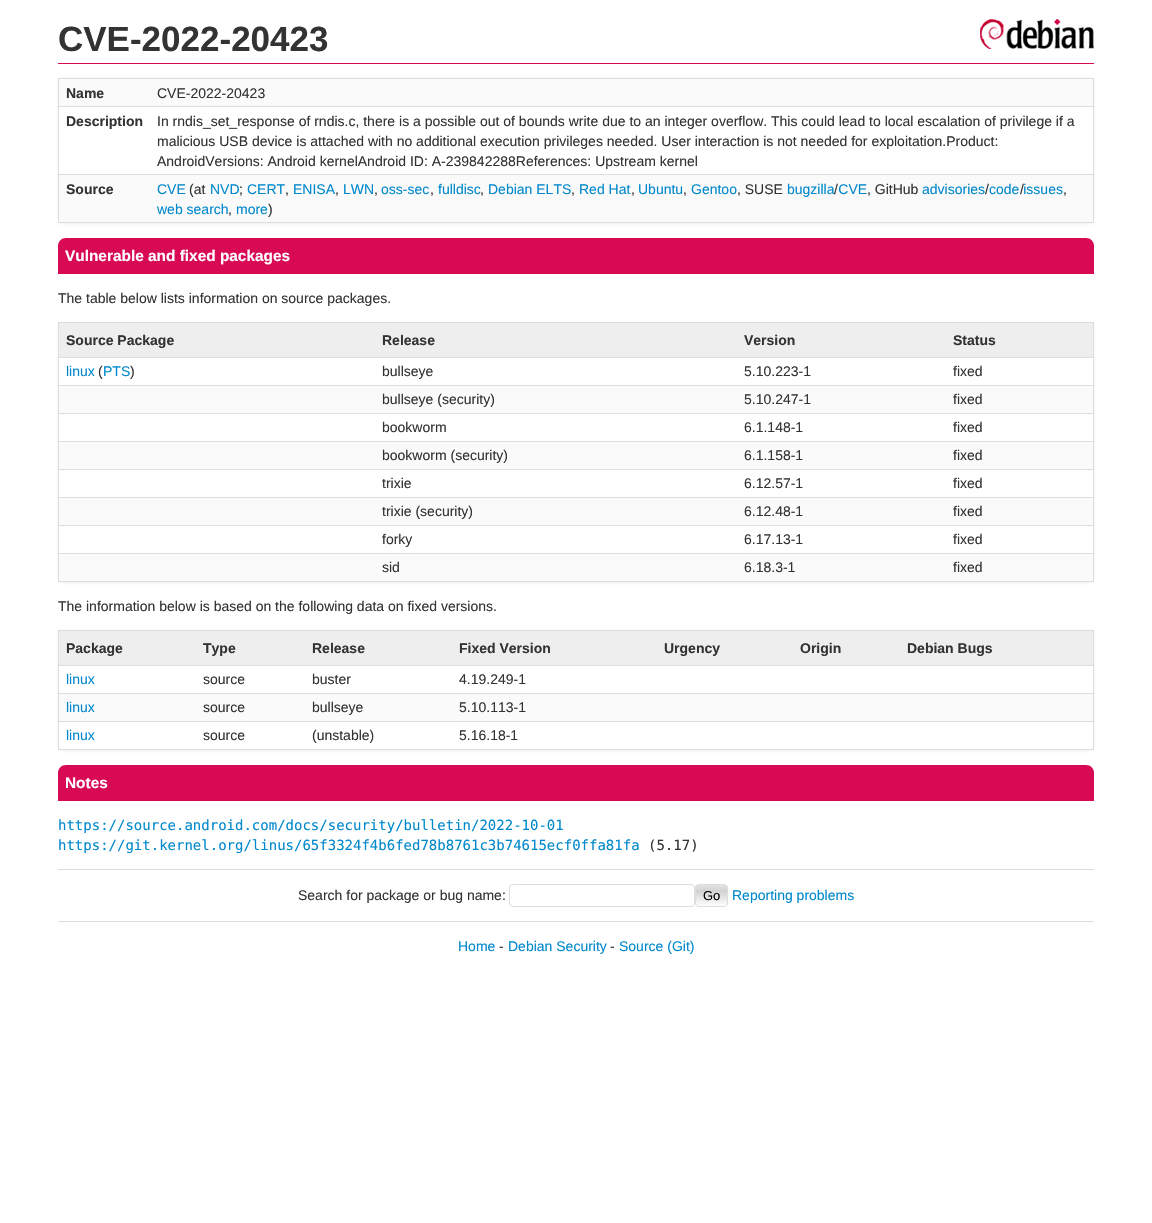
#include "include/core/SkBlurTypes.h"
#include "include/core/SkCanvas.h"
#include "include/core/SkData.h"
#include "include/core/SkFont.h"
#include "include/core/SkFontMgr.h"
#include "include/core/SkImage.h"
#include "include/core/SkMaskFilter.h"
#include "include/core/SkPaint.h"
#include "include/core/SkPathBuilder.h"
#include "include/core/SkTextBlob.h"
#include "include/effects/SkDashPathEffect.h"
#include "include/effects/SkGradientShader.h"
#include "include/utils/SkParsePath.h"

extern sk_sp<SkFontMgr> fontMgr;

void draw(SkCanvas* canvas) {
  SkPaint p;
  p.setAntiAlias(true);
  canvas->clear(SK_ColorWHITE);
  canvas->drawImageRect(SkImages::DeferredFromEncodedData(SkData::MakeFromFileName("images/1.png")), SkRect::MakeLTRB(980, 19, 1094, 49), SkSamplingOptions());
  p.setColor(SkColorSetRGB(215, 10, 83));
  canvas->drawRect(SkRect::MakeLTRB(58, 63, 1094, 64), p);
  canvas->save();
  canvas->clipPath(SkPathBuilder(SkPathFillType::kEvenOdd).moveTo(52, 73).lineTo(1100, 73).lineTo(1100, 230).lineTo(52, 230).close().moveTo(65, 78).lineTo(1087, 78).cubicTo(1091, 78, 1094, 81, 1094, 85).lineTo(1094, 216).cubicTo(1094, 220, 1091, 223, 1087, 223).lineTo(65, 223).cubicTo(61, 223, 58, 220, 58, 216).lineTo(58, 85).cubicTo(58, 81, 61, 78, 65, 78).close().detach(), true);
  p.setColor(SkColorSetRGB(238, 238, 238));
  p.setMaskFilter(SkMaskFilter::MakeBlur(kNormal_SkBlurStyle, 1.5f));
  canvas->drawRoundRect(SkRect::MakeLTRB(58, 79, 1094, 224), 7, 7, p);
  p.setMaskFilter(nullptr);
  canvas->restore();
  p.setColor(SkColorSetRGB(221, 221, 221));
  canvas->drawRect(SkRect::MakeLTRB(58, 78, 1094, 79), p);
  canvas->drawRect(SkRect::MakeLTRB(1093, 78, 1094, 223), p);
  canvas->drawRect(SkRect::MakeLTRB(58, 222, 1094, 223), p);
  canvas->drawRect(SkRect::MakeLTRB(58, 78, 59, 223), p);
  p.setColor(SkColorSetRGB(250, 250, 250));
  canvas->drawRect(SkRect::MakeLTRB(59, 79, 1093, 106), p);
  p.setColor(SkColorSetRGB(221, 221, 221));
  canvas->drawRect(SkRect::MakeLTRB(58, 106, 1094, 107), p);
  canvas->drawRect(SkRect::MakeLTRB(58, 174, 1094, 175), p);
  p.setColor(SkColorSetRGB(250, 250, 250));
  canvas->drawRect(SkRect::MakeLTRB(59, 175, 1093, 222), p);
  p.setColor(SkColorSetRGB(215, 10, 83));
  canvas->drawPath(SkPathBuilder().moveTo(66, 238).lineTo(1086, 238).cubicTo(1090.5f, 238, 1094, 241.5f, 1094, 246).lineTo(1094, 274).lineTo(58, 274).lineTo(58, 246).cubicTo(58, 241.5f, 61.5f, 238, 66, 238).close().detach(), p);
  canvas->save();
  canvas->clipPath(SkPathBuilder(SkPathFillType::kEvenOdd).moveTo(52, 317).lineTo(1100, 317).lineTo(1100, 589).lineTo(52, 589).close().moveTo(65, 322).lineTo(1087, 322).cubicTo(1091, 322, 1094, 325, 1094, 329).lineTo(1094, 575).cubicTo(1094, 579, 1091, 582, 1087, 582).lineTo(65, 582).cubicTo(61, 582, 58, 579, 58, 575).lineTo(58, 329).cubicTo(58, 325, 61, 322, 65, 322).close().detach(), true);
  p.setColor(SkColorSetRGB(238, 238, 238));
  p.setMaskFilter(SkMaskFilter::MakeBlur(kNormal_SkBlurStyle, 1.5f));
  canvas->drawRoundRect(SkRect::MakeLTRB(58, 323, 1094, 583), 7, 7, p);
  p.setMaskFilter(nullptr);
  canvas->restore();
  p.setColor(SkColorSetRGB(221, 221, 221));
  canvas->drawRect(SkRect::MakeLTRB(58, 322, 1094, 323), p);
  canvas->drawRect(SkRect::MakeLTRB(1093, 322, 1094, 582), p);
  canvas->drawRect(SkRect::MakeLTRB(58, 581, 1094, 582), p);
  canvas->drawRect(SkRect::MakeLTRB(58, 322, 59, 582), p);
  p.setColor(SkColorSetRGB(238, 238, 238));
  canvas->drawRect(SkRect::MakeLTRB(59, 323, 1093, 357), p);
  p.setColor(SkColorSetRGB(221, 221, 221));
  canvas->drawRect(SkRect::MakeLTRB(58, 357, 1094, 358), p);
  canvas->drawRect(SkRect::MakeLTRB(58, 385, 1094, 386), p);
  p.setColor(SkColorSetRGB(250, 250, 250));
  canvas->drawRect(SkRect::MakeLTRB(59, 386, 1093, 413), p);
  p.setColor(SkColorSetRGB(221, 221, 221));
  canvas->drawRect(SkRect::MakeLTRB(58, 413, 1094, 414), p);
  canvas->drawRect(SkRect::MakeLTRB(58, 441, 1094, 442), p);
  p.setColor(SkColorSetRGB(250, 250, 250));
  canvas->drawRect(SkRect::MakeLTRB(59, 442, 1093, 469), p);
  p.setColor(SkColorSetRGB(221, 221, 221));
  canvas->drawRect(SkRect::MakeLTRB(58, 469, 1094, 470), p);
  canvas->drawRect(SkRect::MakeLTRB(58, 497, 1094, 498), p);
  p.setColor(SkColorSetRGB(250, 250, 250));
  canvas->drawRect(SkRect::MakeLTRB(59, 498, 1093, 525), p);
  p.setColor(SkColorSetRGB(221, 221, 221));
  canvas->drawRect(SkRect::MakeLTRB(58, 525, 1094, 526), p);
  canvas->drawRect(SkRect::MakeLTRB(58, 553, 1094, 554), p);
  p.setColor(SkColorSetRGB(250, 250, 250));
  canvas->drawRect(SkRect::MakeLTRB(59, 554, 1093, 581), p);
  canvas->save();
  canvas->clipPath(SkPathBuilder(SkPathFillType::kEvenOdd).moveTo(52, 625).lineTo(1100, 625).lineTo(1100, 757).lineTo(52, 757).close().moveTo(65, 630).lineTo(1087, 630).cubicTo(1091, 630, 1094, 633, 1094, 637).lineTo(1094, 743).cubicTo(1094, 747, 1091, 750, 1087, 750).lineTo(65, 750).cubicTo(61, 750, 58, 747, 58, 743).lineTo(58, 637).cubicTo(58, 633, 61, 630, 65, 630).close().detach(), true);
  p.setColor(SkColorSetRGB(238, 238, 238));
  p.setMaskFilter(SkMaskFilter::MakeBlur(kNormal_SkBlurStyle, 1.5f));
  canvas->drawRoundRect(SkRect::MakeLTRB(58, 631, 1094, 751), 7, 7, p);
  p.setMaskFilter(nullptr);
  canvas->restore();
  p.setColor(SkColorSetRGB(221, 221, 221));
  canvas->drawRect(SkRect::MakeLTRB(58, 630, 1094, 631), p);
  canvas->drawRect(SkRect::MakeLTRB(1093, 630, 1094, 750), p);
  canvas->drawRect(SkRect::MakeLTRB(58, 749, 1094, 750), p);
  canvas->drawRect(SkRect::MakeLTRB(58, 630, 59, 750), p);
  p.setColor(SkColorSetRGB(238, 238, 238));
  canvas->drawRect(SkRect::MakeLTRB(59, 631, 1093, 665), p);
  p.setColor(SkColorSetRGB(221, 221, 221));
  canvas->drawRect(SkRect::MakeLTRB(58, 665, 1094, 666), p);
  canvas->drawRect(SkRect::MakeLTRB(58, 693, 1094, 694), p);
  p.setColor(SkColorSetRGB(250, 250, 250));
  canvas->drawRect(SkRect::MakeLTRB(59, 694, 1093, 721), p);
  p.setColor(SkColorSetRGB(221, 221, 221));
  canvas->drawRect(SkRect::MakeLTRB(58, 721, 1094, 722), p);
  p.setColor(SkColorSetRGB(215, 10, 83));
  canvas->drawPath(SkPathBuilder().moveTo(66, 765).lineTo(1086, 765).cubicTo(1090.5f, 765, 1094, 768.5f, 1094, 773).lineTo(1094, 801).lineTo(58, 801).lineTo(58, 773).cubicTo(58, 768.5f, 61.5f, 765, 66, 765).close().detach(), p);
  p.setColor(SkColorSetRGB(221, 221, 221));
  canvas->drawRect(SkRect::MakeLTRB(58, 869, 1094, 870), p);
  canvas->drawRect(SkRect::MakeLTRB(58, 921, 1094, 922), p);
  p.setStyle(SkPaint::kStroke_Style);
  p.setStrokeWidth(1);
  canvas->drawRoundRect(SkRect::MakeLTRB(509.5f, 884.5f, 694.5f, 906.5f), 3.5f, 3.5f, p);
  canvas->save();
  canvas->clipPath(SkPathBuilder().moveTo(699, 884).lineTo(724, 884).cubicTo(726, 884, 728, 886, 728, 888).lineTo(728, 903).cubicTo(728, 905, 726, 907, 724, 907).lineTo(699, 907).cubicTo(697, 907, 695, 905, 695, 903).lineTo(695, 888).cubicTo(695, 886, 697, 884, 699, 884).close().detach(), true);
  p.setStyle(SkPaint::kFill_Style);
  {
    const SkColor colors[] = {SkColorSetRGB(226, 226, 226), SkColorSetRGB(219, 219, 219), SkColorSetRGB(209, 209, 209), SkColorSetRGB(254, 254, 254)};
    const float stops[] = {0, 0.15f, 0.28f, 1};
    const SkPoint ends[] = {{712, 885}, {712, 906}};
    p.setShader(SkGradientShader::MakeLinear(ends, colors, stops, 4, SkTileMode::kClamp));
    p.setAlpha(255);
  }
  canvas->drawRect(SkRect::MakeLTRB(695, 885, 728, 906), p);
  canvas->restore();
  p.setStyle(SkPaint::kStroke_Style);
  p.setShader(nullptr);
  p.setColor(SkColorSetRGB(221, 221, 221));
  canvas->drawRoundRect(SkRect::MakeLTRB(695.5f, 884.5f, 727.5f, 906.5f), 3.5f, 3.5f, p);
  SkFont font1(fontMgr->matchFamilyStyle("Liberation Sans", SkFontStyle::Bold()), 35);
  font1.setSubpixel(true);
  p.setStyle(SkPaint::kFill_Style);
  p.setColor(SkColorSetRGB(51, 51, 51));
  canvas->drawString("CVE-2022-20423", 58, 51, font1, p);
  SkFont font2(fontMgr->matchFamilyStyle("Liberation Sans", SkFontStyle::Bold()), 14);
  font2.setSubpixel(true);
  canvas->drawString("Name", 66, 98, font2, p);
  SkFont font3(fontMgr->matchFamilyStyle("Liberation Sans", SkFontStyle::Normal()), 14);
  font3.setSubpixel(true);
  canvas->drawString("CVE-2022-20423", 157, 98, font3, p);
  canvas->drawString("Description", 66, 126, font2, p);
  canvas->drawString("In rndis_set_response of rndis.c, there is a possible out of bounds write due to an integer overflow. This could lead to local escalation of privilege if a", 157, 126, font3, p);
  canvas->drawString("malicious USB device is attached with no additional execution privileges needed. User interaction is not needed for exploitation.Product:", 157, 146, font3, p);
  canvas->drawString("AndroidVersions: Android kernelAndroid ID: A-239842288References: Upstream kernel", 157, 166, font3, p);
  canvas->drawString("Source", 66, 194, font2, p);
  canvas->drawString("(at", 189, 194, font3, p);
  p.setColor(SkColorSetRGB(0, 136, 204));
  canvas->drawString("fulldisc", 438, 194, font3, p);
  canvas->drawString("Debian ELTS", 488, 194, font3, p);
  canvas->drawString("Red Hat", 579, 194, font3, p);
  canvas->drawString("Ubuntu", 638, 194, font3, p);
  canvas->drawString("bugzilla CVE", 787, 194, font3, p);
  p.setColor(SkColorSetRGB(51, 51, 51));
  canvas->drawString("/", 834, 194, font3, p);
  canvas->drawString(", GitHub", 867, 194, font3, p);
  p.setColor(SkColorSetRGB(0, 136, 204));
  canvas->drawString("advisories", 922, 194, font3, p);
  p.setColor(SkColorSetRGB(51, 51, 51));
  canvas->drawString("/", 985, 194, font3, p);
  p.setColor(SkColorSetRGB(0, 136, 204));
  canvas->drawString("code issues", 989, 194, font3, p);
  canvas->drawString("CVE", 157, 194, font3, p);
  canvas->drawString("NVD", 210, 194, font3, p);
  p.setColor(SkColorSetRGB(51, 51, 51));
  canvas->drawString(";", 239, 194, font3, p);
  p.setColor(SkColorSetRGB(0, 136, 204));
  canvas->drawString("CERT", 247, 194, font3, p);
  p.setColor(SkColorSetRGB(51, 51, 51));
  canvas->drawString(",", 285, 194, font3, p);
  p.setColor(SkColorSetRGB(0, 136, 204));
  canvas->drawString("ENISA", 293, 194, font3, p);
  p.setColor(SkColorSetRGB(51, 51, 51));
  canvas->drawString(",", 335, 194, font3, p);
  p.setColor(SkColorSetRGB(0, 136, 204));
  canvas->drawString("LWN", 343, 194, font3, p);
  p.setColor(SkColorSetRGB(51, 51, 51));
  canvas->drawString(",", 374, 194, font3, p);
  p.setColor(SkColorSetRGB(0, 136, 204));
  canvas->drawString("oss-sec", 381, 194, font3, p);
  p.setColor(SkColorSetRGB(51, 51, 51));
  canvas->drawString(",", 430, 194, font3, p);
  canvas->drawString(",", 480, 194, font3, p);
  canvas->drawString(",", 571, 194, font3, p);
  canvas->drawString(",", 631, 194, font3, p);
  canvas->drawString(",", 683, 194, font3, p);
  p.setColor(SkColorSetRGB(0, 136, 204));
  canvas->drawString("Gentoo", 691, 194, font3, p);
  p.setColor(SkColorSetRGB(51, 51, 51));
  canvas->drawString(", SUSE", 737, 194, font3, p);
  canvas->drawString("/", 1020, 194, font3, p);
  canvas->drawString(",", 1063, 194, font3, p);
  p.setColor(SkColorSetRGB(0, 136, 204));
  canvas->drawString("web search", 157, 214, font3, p);
  p.setColor(SkColorSetRGB(51, 51, 51));
  canvas->drawString(",", 228, 214, font3, p);
  p.setColor(SkColorSetRGB(0, 136, 204));
  canvas->drawString("more", 236, 214, font3, p);
  p.setColor(SkColorSetRGB(51, 51, 51));
  canvas->drawString(")", 268, 214, font3, p);
  SkFont font4(fontMgr->matchFamilyStyle("Liberation Sans", SkFontStyle::Bold()), 15.4f);
  font4.setSubpixel(true);
  p.setColor(SK_ColorWHITE);
  canvas->drawString("Vulnerable and fixed packages", 65, 261, font4, p);
  p.setColor(SkColorSetRGB(51, 51, 51));
  canvas->drawString("The table below lists information on source packages.", 58, 303, font3, p);
  canvas->drawString("Source Package", 66, 345, font2, p);
  canvas->drawString("Release", 382, 345, font2, p);
  canvas->drawString("Version", 744, 345, font2, p);
  canvas->drawString("Status", 953, 345, font2, p);
  p.setColor(SkColorSetRGB(0, 136, 204));
  canvas->drawString("linux", 66, 376, font3, p);
  p.setColor(SkColorSetRGB(51, 51, 51));
  canvas->drawString("(", 98, 376, font3, p);
  p.setColor(SkColorSetRGB(0, 136, 204));
  canvas->drawString("PTS", 103, 376, font3, p);
  p.setColor(SkColorSetRGB(51, 51, 51));
  canvas->drawString(")", 130, 376, font3, p);
  canvas->drawString("bullseye", 382, 376, font3, p);
  canvas->drawString("5.10.223-1", 744, 376, font3, p);
  canvas->drawString("fixed", 953, 376, font3, p);
  canvas->drawString("bullseye (security)", 382, 404, font3, p);
  canvas->drawString("5.10.247-1", 744, 404, font3, p);
  canvas->drawString("fixed", 953, 404, font3, p);
  canvas->drawString("bookworm", 382, 432, font3, p);
  canvas->drawString("6.1.148-1", 744, 432, font3, p);
  canvas->drawString("fixed", 953, 432, font3, p);
  canvas->drawString("bookworm (security)", 382, 460, font3, p);
  canvas->drawString("6.1.158-1", 744, 460, font3, p);
  canvas->drawString("fixed", 953, 460, font3, p);
  canvas->drawString("trixie", 382, 488, font3, p);
  canvas->drawString("6.12.57-1", 744, 488, font3, p);
  canvas->drawString("fixed", 953, 488, font3, p);
  canvas->drawString("trixie (security)", 382, 516, font3, p);
  canvas->drawString("6.12.48-1", 744, 516, font3, p);
  canvas->drawString("fixed", 953, 516, font3, p);
  canvas->drawString("forky", 382, 544, font3, p);
  canvas->drawString("6.17.13-1", 744, 544, font3, p);
  canvas->drawString("fixed", 953, 544, font3, p);
  canvas->drawString("sid", 382, 572, font3, p);
  canvas->drawString("6.18.3-1", 744, 572, font3, p);
  canvas->drawString("fixed", 953, 572, font3, p);
  canvas->drawString("The information below is based on the following data on fixed versions.", 58, 611, font3, p);
  canvas->drawString("Package", 66, 653, font2, p);
  canvas->drawString("Type", 203, 653, font2, p);
  canvas->drawString("Release", 312, 653, font2, p);
  canvas->drawString("Fixed Version", 459, 653, font2, p);
  canvas->drawString("Urgency", 664, 653, font2, p);
  canvas->drawString("Origin", 800, 653, font2, p);
  canvas->drawString("Debian Bugs", 907, 653, font2, p);
  p.setColor(SkColorSetRGB(0, 136, 204));
  canvas->drawString("linux", 66, 684, font3, p);
  p.setColor(SkColorSetRGB(51, 51, 51));
  canvas->drawString("source", 203, 684, font3, p);
  canvas->drawString("buster", 312, 684, font3, p);
  canvas->drawString("4.19.249-1", 459, 684, font3, p);
  p.setColor(SkColorSetRGB(0, 136, 204));
  canvas->drawString("linux", 66, 712, font3, p);
  p.setColor(SkColorSetRGB(51, 51, 51));
  canvas->drawString("source", 203, 712, font3, p);
  canvas->drawString("bullseye", 312, 712, font3, p);
  canvas->drawString("5.10.113-1", 459, 712, font3, p);
  p.setColor(SkColorSetRGB(0, 136, 204));
  canvas->drawString("linux", 66, 740, font3, p);
  p.setColor(SkColorSetRGB(51, 51, 51));
  canvas->drawString("source", 203, 740, font3, p);
  canvas->drawString("(unstable)", 312, 740, font3, p);
  canvas->drawString("5.16.18-1", 459, 740, font3, p);
  p.setColor(SK_ColorWHITE);
  canvas->drawString("Notes", 65, 788, font4, p);
  SkFont font5(fontMgr->matchFamilyStyle("DejaVu Sans Mono", SkFontStyle::Normal()), 14);
  font5.setSubpixel(true);
  p.setColor(SkColorSetRGB(0, 136, 204));
  canvas->drawString("https://source.android.com/docs/security/bulletin/2022-10-01", 58, 830, font5, p);
  canvas->drawString("https://git.kernel.org/linus/65f3324f4b6fed78b8761c3b74615ecf0ffa81fa", 58, 850, font5, p);
  p.setColor(SkColorSetRGB(51, 51, 51));
  canvas->drawString("(5.17)", 648, 850, font5, p);
  canvas->drawString("Search for package or bug name:", 298, 900, font3, p);
  SkFont font6(fontMgr->matchFamilyStyle("Liberation Sans", SkFontStyle::Normal()), 13);
  font6.setSubpixel(true);
  p.setColor(SK_ColorBLACK);
  canvas->drawString("Go", 703, 900, font6, p);
  p.setColor(SkColorSetRGB(0, 136, 204));
  canvas->drawString("Reporting problems", 732, 900, font3, p);
  canvas->drawString("Home", 458, 951, font3, p);
  p.setColor(SkColorSetRGB(51, 51, 51));
  canvas->drawString("-", 499, 951, font3, p);
  p.setColor(SkColorSetRGB(0, 136, 204));
  canvas->drawString("Debian Security", 508, 951, font3, p);
  p.setColor(SkColorSetRGB(51, 51, 51));
  canvas->drawString("-", 610, 951, font3, p);
  p.setColor(SkColorSetRGB(0, 136, 204));
  canvas->drawString("Source (Git)", 619, 951, font3, p);
}
